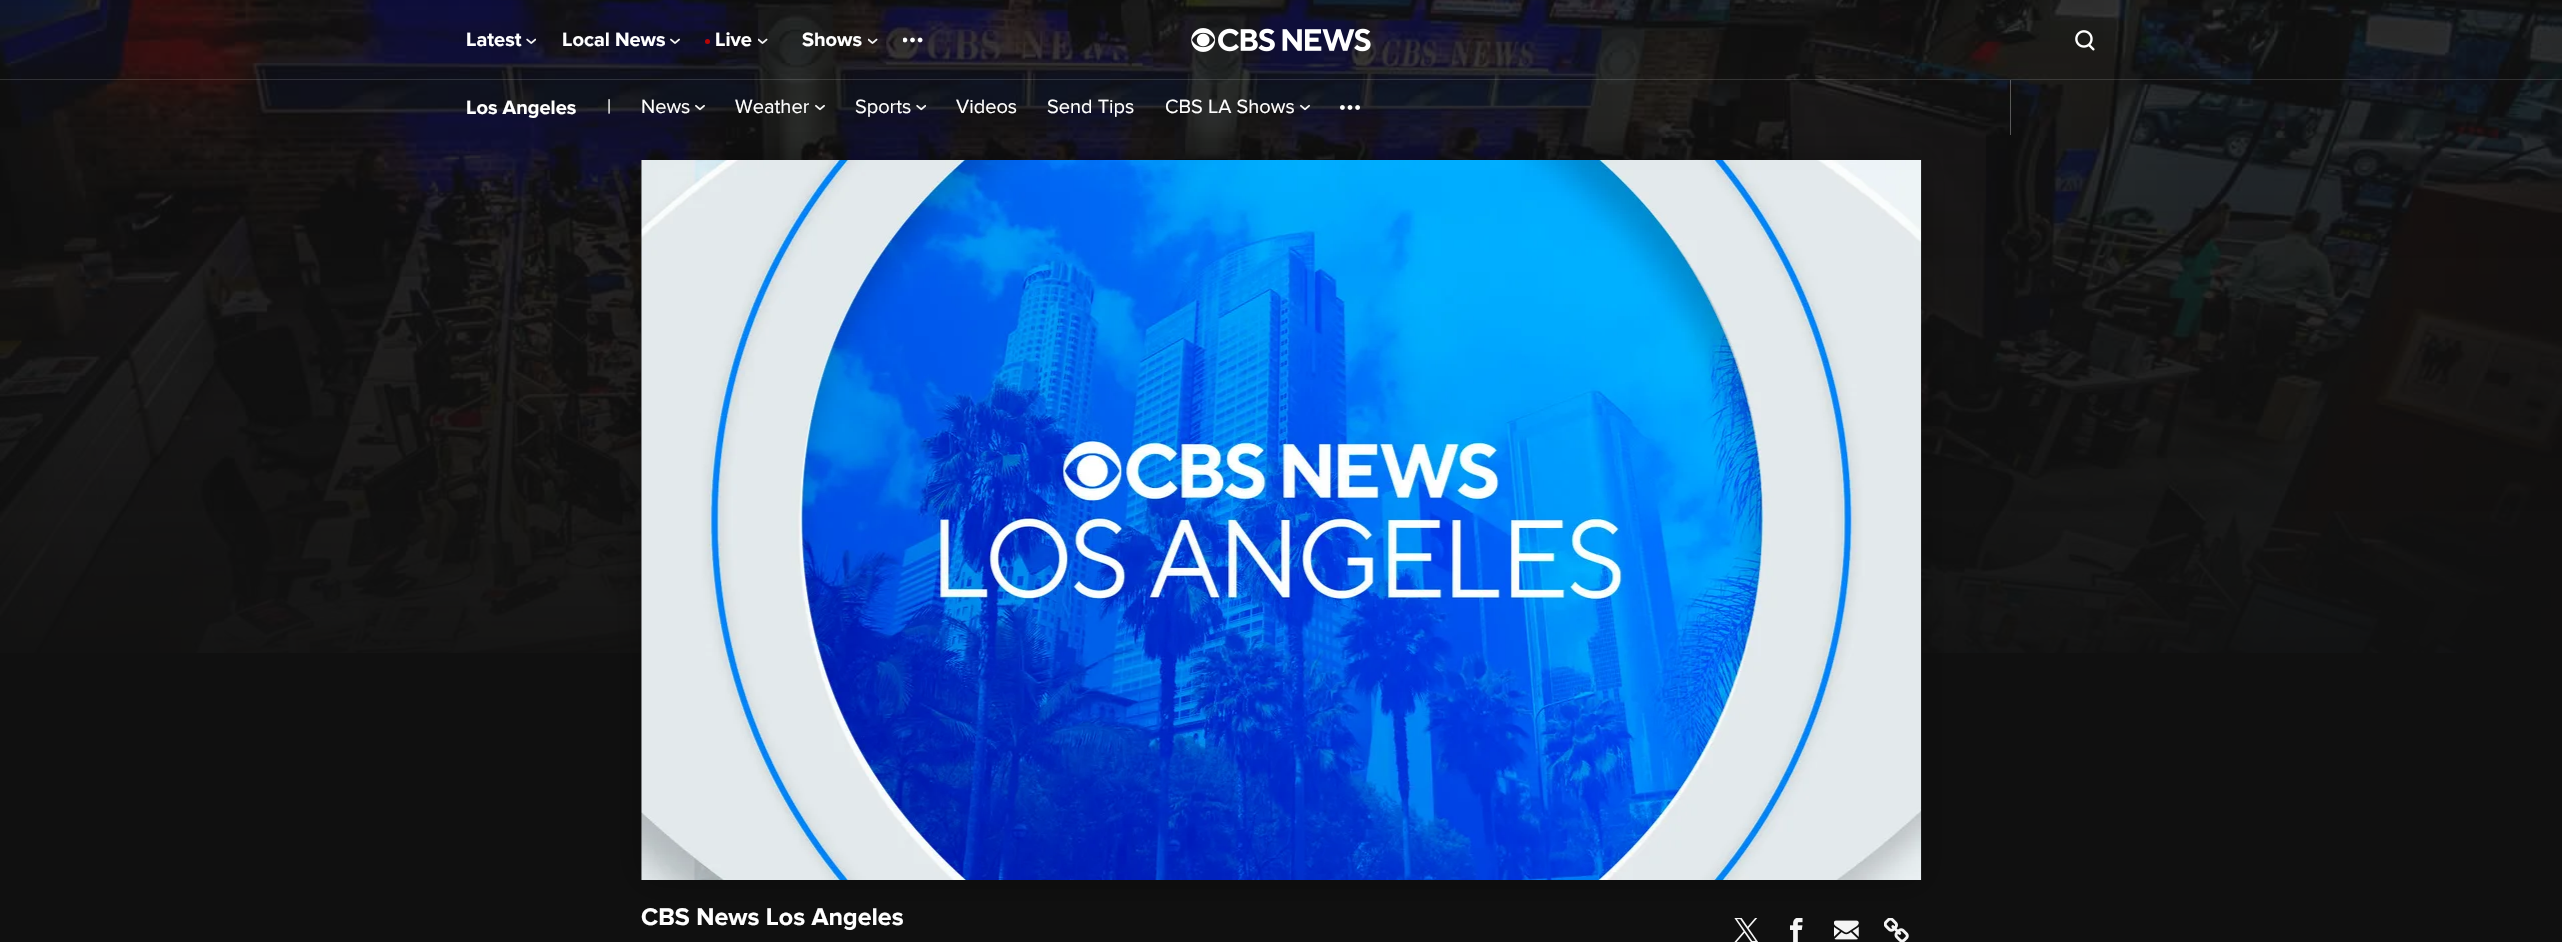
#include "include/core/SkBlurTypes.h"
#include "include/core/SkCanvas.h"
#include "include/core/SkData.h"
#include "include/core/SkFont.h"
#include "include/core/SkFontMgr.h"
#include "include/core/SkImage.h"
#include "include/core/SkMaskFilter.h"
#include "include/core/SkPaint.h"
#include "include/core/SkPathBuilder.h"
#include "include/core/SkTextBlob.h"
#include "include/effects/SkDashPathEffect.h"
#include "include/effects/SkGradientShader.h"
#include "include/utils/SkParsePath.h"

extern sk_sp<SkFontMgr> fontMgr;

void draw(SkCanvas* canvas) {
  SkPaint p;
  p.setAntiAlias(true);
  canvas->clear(SkColorSetRGB(16, 16, 16));
  canvas->drawImageRect(SkImages::DeferredFromEncodedData(SkData::MakeFromFileName("images/13.png")), SkRect::MakeLTRB(0, 0, 2562, 653), SkSamplingOptions());
  p.setColor(SkColorSetARGB(38, 242, 242, 242));
  canvas->drawRect(SkRect::MakeLTRB(0, 79, 2562, 80), p);
  canvas->drawImageRect(SkImages::DeferredFromEncodedData(SkData::MakeFromFileName("images/1.png")), SkRect::MakeLTRB(526, 38, 536, 44), SkSamplingOptions());
  canvas->drawImageRect(SkImages::DeferredFromEncodedData(SkData::MakeFromFileName("images/2.png")), SkRect::MakeLTRB(670, 38, 680, 44), SkSamplingOptions());
  p.setColor(SkColorSetRGB(182, 5, 5));
  canvas->drawCircle(707.5f, 41.5f, 2.5f, p);
  canvas->drawImageRect(SkImages::DeferredFromEncodedData(SkData::MakeFromFileName("images/3.png")), SkRect::MakeLTRB(758, 38, 768, 44), SkSamplingOptions());
  canvas->drawImageRect(SkImages::DeferredFromEncodedData(SkData::MakeFromFileName("images/4.png")), SkRect::MakeLTRB(868, 38, 878, 44), SkSamplingOptions());
  canvas->drawImageRect(SkImages::DeferredFromEncodedData(SkData::MakeFromFileName("images/5.png")), SkRect::MakeLTRB(903, 37, 923, 43), SkSamplingOptions());
  canvas->drawImageRect(SkImages::DeferredFromEncodedData(SkData::MakeFromFileName("images/6.png")), SkRect::MakeLTRB(1191, 28, 1371, 52), SkSamplingOptions());
  canvas->drawImageRect(SkImages::DeferredFromEncodedData(SkData::MakeFromFileName("images/7.png")), SkRect::MakeLTRB(2075, 30, 2095, 51), SkSamplingOptions());
  canvas->drawImageRect(SkImages::DeferredFromEncodedData(SkData::MakeFromFileName("images/8.png")), SkRect::MakeLTRB(695, 104, 705, 111), SkSamplingOptions());
  canvas->drawImageRect(SkImages::DeferredFromEncodedData(SkData::MakeFromFileName("images/9.png")), SkRect::MakeLTRB(815, 104, 825, 111), SkSamplingOptions());
  canvas->drawImageRect(SkImages::DeferredFromEncodedData(SkData::MakeFromFileName("images/10.png")), SkRect::MakeLTRB(916, 104, 926, 111), SkSamplingOptions());
  canvas->drawImageRect(SkImages::DeferredFromEncodedData(SkData::MakeFromFileName("images/11.png")), SkRect::MakeLTRB(1300, 104, 1310, 111), SkSamplingOptions());
  canvas->drawImageRect(SkImages::DeferredFromEncodedData(SkData::MakeFromFileName("images/12.png")), SkRect::MakeLTRB(1340, 105, 1360, 110), SkSamplingOptions());
  p.setColor(SkColorSetARGB(77, 255, 255, 255));
  canvas->drawRect(SkRect::MakeLTRB(2010, 80, 2011, 135), p);
  p.setColor(SkColorSetARGB(77, 0, 0, 0));
  p.setMaskFilter(SkMaskFilter::MakeBlur(kNormal_SkBlurStyle, 15.5f));
  canvas->drawRect(SkRect::MakeLTRB(641, 160, 1921, 880), p);
  p.setMaskFilter(nullptr);
  p.setColor(SK_ColorBLACK);
  canvas->drawRect(SkRect::MakeLTRB(641, 160, 642, 880), p);
  canvas->drawImageRect(SkImages::DeferredFromEncodedData(SkData::MakeFromFileName("images/14.png")), SkRect::MakeLTRB(641, 160, 1922, 880), SkSamplingOptions());
  canvas->drawImageRect(SkImages::DeferredFromEncodedData(SkData::MakeFromFileName("images/15.png")), SkRect::MakeLTRB(1734, 918, 1758, 942), SkSamplingOptions());
  canvas->drawImageRect(SkImages::DeferredFromEncodedData(SkData::MakeFromFileName("images/16.png")), SkRect::MakeLTRB(1790, 918, 1803, 942), SkSamplingOptions());
  canvas->drawImageRect(SkImages::DeferredFromEncodedData(SkData::MakeFromFileName("images/17.png")), SkRect::MakeLTRB(1834, 920, 1859, 940), SkSamplingOptions());
  canvas->drawImageRect(SkImages::DeferredFromEncodedData(SkData::MakeFromFileName("images/18.png")), SkRect::MakeLTRB(1884, 918, 1909, 942), SkSamplingOptions());
  SkFont font1(fontMgr->matchFamilyStyle("Proxima Nova", SkFontStyle::Bold()), 20);
  font1.setSubpixel(true);
  p.setColor(SK_ColorWHITE);
  canvas->drawString("Latest", 466, 46, font1, p);
  canvas->drawString("Local News", 562, 46, font1, p);
  canvas->drawString("Live", 715, 46, font1, p);
  canvas->drawString("Shows", 802, 46, font1, p);
  canvas->drawString("Los Angeles", 466, 114, font1, p);
  SkFont font2(fontMgr->matchFamilyStyle("Proxima Nova", SkFontStyle::Normal()), 20);
  font2.setSubpixel(true);
  canvas->drawString("|", 607, 113, font2, p);
  canvas->drawString("News", 641, 113, font2, p);
  canvas->drawString("Weather", 735, 113, font2, p);
  canvas->drawString("Sports", 855, 113, font2, p);
  canvas->drawString("Videos", 956, 113, font2, p);
  canvas->drawString("Send Tips", 1047, 113, font2, p);
  canvas->drawString("CBS LA Shows", 1165, 113, font2, p);
  SkFont font3(fontMgr->matchFamilyStyle("Proxima Nova", SkFontStyle::Bold()), 25);
  font3.setSubpixel(true);
  canvas->drawString("CBS News Los Angeles", 641, 925, font3, p);
}
